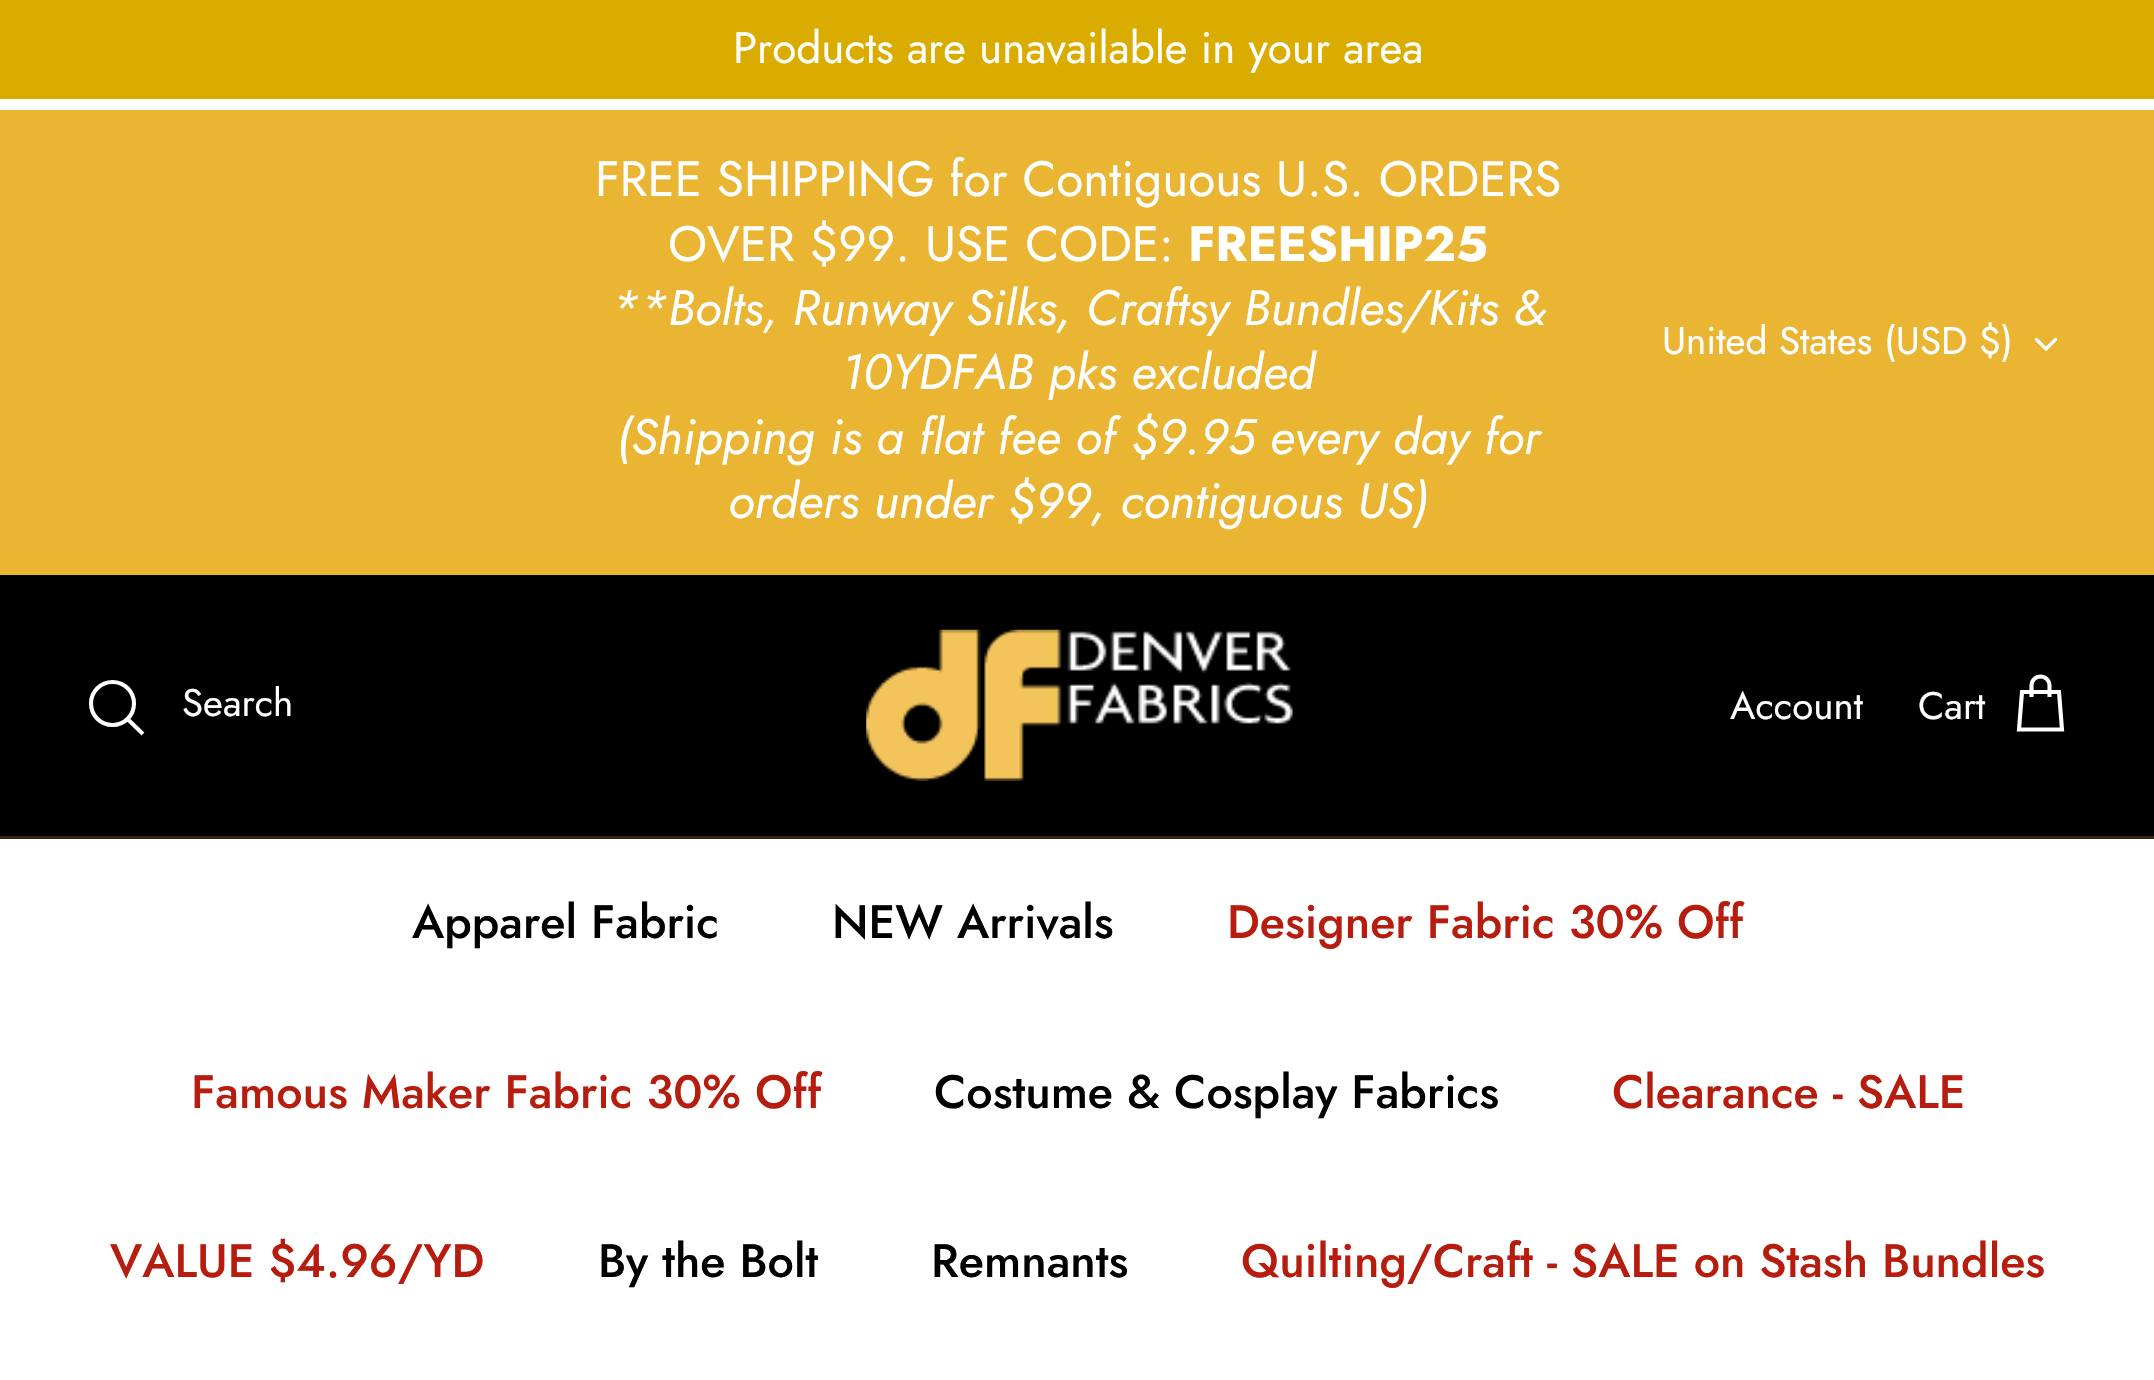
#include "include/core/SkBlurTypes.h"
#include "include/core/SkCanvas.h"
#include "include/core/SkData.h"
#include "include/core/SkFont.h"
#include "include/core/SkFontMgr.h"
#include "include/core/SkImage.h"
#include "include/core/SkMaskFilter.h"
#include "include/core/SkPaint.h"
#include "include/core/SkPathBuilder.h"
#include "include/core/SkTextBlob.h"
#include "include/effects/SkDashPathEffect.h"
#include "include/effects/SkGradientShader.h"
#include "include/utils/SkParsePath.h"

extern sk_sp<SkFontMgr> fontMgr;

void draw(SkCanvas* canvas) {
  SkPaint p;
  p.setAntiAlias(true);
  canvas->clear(SK_ColorWHITE);
  p.setColor(SkColorSetRGB(219, 172, 0));
  canvas->drawRect(SkRect::MakeLTRB(0, 0, 2154, 99), p);
  p.setColor(SkColorSetRGB(233, 181, 51));
  canvas->drawRect(SkRect::MakeLTRB(0, 110, 2154, 575), p);
  p.setStyle(SkPaint::kStroke_Style);
  p.setStrokeWidth(3.2f);
  p.setStrokeCap(SkPaint::kRound_Cap);
  p.setStrokeJoin(SkPaint::kRound_Join);
  p.setColor(SK_ColorWHITE);
  canvas->drawPath(SkPathBuilder().moveTo(2036.5f, 339.5f).lineTo(2046, 349).lineTo(2055.5f, 339.5f).detach(), p);
  p.setStyle(SkPaint::kFill_Style);
  p.setColor(SK_ColorBLACK);
  canvas->drawRect(SkRect::MakeLTRB(0, 575, 2154, 836), p);
  p.setColor(SkColorSetRGB(57, 37, 13));
  canvas->drawRect(SkRect::MakeLTRB(0, 836, 2154, 839), p);
  p.setStyle(SkPaint::kStroke_Style);
  p.setStrokeWidth(4.1f);
  p.setStrokeCap(SkPaint::kButt_Cap);
  p.setStrokeJoin(SkPaint::kMiter_Join);
  p.setColor(SK_ColorWHITE);
  canvas->drawCircle(112.5f, 703.5f, 21.5f, p);
  p.setStrokeCap(SkPaint::kSquare_Cap);
  canvas->drawPath(SkPathBuilder().moveTo(129, 720.5f).lineTo(141.5f, 732.5f).detach(), p);
  canvas->drawImageRect(SkImages::DeferredFromEncodedData(SkData::MakeFromFileName("images/1.png")), SkRect::MakeLTRB(866, 629, 1293, 781), SkSamplingOptions());
  p.setStrokeCap(SkPaint::kButt_Cap);
  canvas->drawPath(SkPathBuilder().moveTo(2049.5f, 697).lineTo(2049.5f, 685.5f).cubicTo(2049.5f, 680.5f, 2045.5f, 676.5f, 2040.5f, 676.5f).cubicTo(2035.5f, 676.5f, 2031.5f, 680.5f, 2031.5f, 685.5f).lineTo(2031.5f, 697).moveTo(2022, 692).lineTo(2059, 692).lineTo(2062, 729.5f).lineTo(2019, 729.5f).close().detach(), p);
  SkFont font1(fontMgr->matchFamilyStyle("Jost", SkFontStyle::Normal()), 44);
  font1.setSubpixel(true);
  p.setStyle(SkPaint::kFill_Style);
  canvas->drawString("Products are unavailable in your area", 733, 63, font1, p);
  SkFont font2(fontMgr->matchFamilyStyle("Jost", SkFontStyle::Normal()), 49.5f);
  font2.setSubpixel(true);
  canvas->drawString("FREE SHIPPING for Contiguous U.S. ORDERS", 595, 196, font2, p);
  canvas->drawString("OVER $99. USE CODE:", 668, 261, font2, p);
  SkFont font3(fontMgr->matchFamilyStyle("Jost", SkFontStyle::Bold()), 49.5f);
  font3.setSubpixel(true);
  canvas->drawString("FREESHIP25", 1188, 261, font3, p);
  SkFont font4(fontMgr->matchFamilyStyle("Jost", SkFontStyle::Italic()), 49.5f);
  font4.setSubpixel(true);
  canvas->drawString("**Bolts, Runway Silks, Craftsy Bundles/Kits &", 611, 325, font4, p);
  canvas->drawString("10YDFAB pks excluded", 841, 389, font4, p);
  canvas->drawString("(Shipping is a flat fee of $9.95 every day for", 616, 454, font4, p);
  canvas->drawString("orders under $99, contiguous US)", 728, 518, font4, p);
  SkFont font5(fontMgr->matchFamilyStyle("Jost", SkFontStyle::Normal()), 38.5f);
  font5.setSubpixel(true);
  canvas->drawString("United States (USD $)", 1662, 354, font5, p);
  canvas->drawString("Search", 182, 716, font5, p);
  canvas->drawString("Account", 1730, 719, font5, p);
  canvas->drawString("Cart", 1918, 719, font5, p);
  SkFont font6(fontMgr->matchFamilyStyle("Jost", SkFontStyle(500, SkFontStyle::kNormal_Width, SkFontStyle::kUpright_Slant)), 46.75f);
  font6.setSubpixel(true);
  p.setColor(SK_ColorBLACK);
  canvas->drawString("Apparel Fabric", 412, 938, font6, p);
  canvas->drawString("NEW Arrivals", 832, 938, font6, p);
  p.setColor(SkColorSetRGB(182, 29, 15));
  canvas->drawString("Designer Fabric 30% Off", 1227, 938, font6, p);
  canvas->drawString("Famous Maker Fabric 30% Off", 191, 1108, font6, p);
  p.setColor(SK_ColorBLACK);
  canvas->drawString("Costume & Cosplay Fabrics", 934, 1108, font6, p);
  p.setColor(SkColorSetRGB(182, 29, 15));
  canvas->drawString("Clearance - SALE", 1612, 1108, font6, p);
  canvas->drawString("VALUE $4.96/YD", 110, 1277, font6, p);
  p.setColor(SK_ColorBLACK);
  canvas->drawString("By the Bolt", 598, 1277, font6, p);
  canvas->drawString("Remnants", 931, 1277, font6, p);
  p.setColor(SkColorSetRGB(182, 29, 15));
  canvas->drawString("Quilting/Craft - SALE on Stash Bundles", 1241, 1277, font6, p);
}
